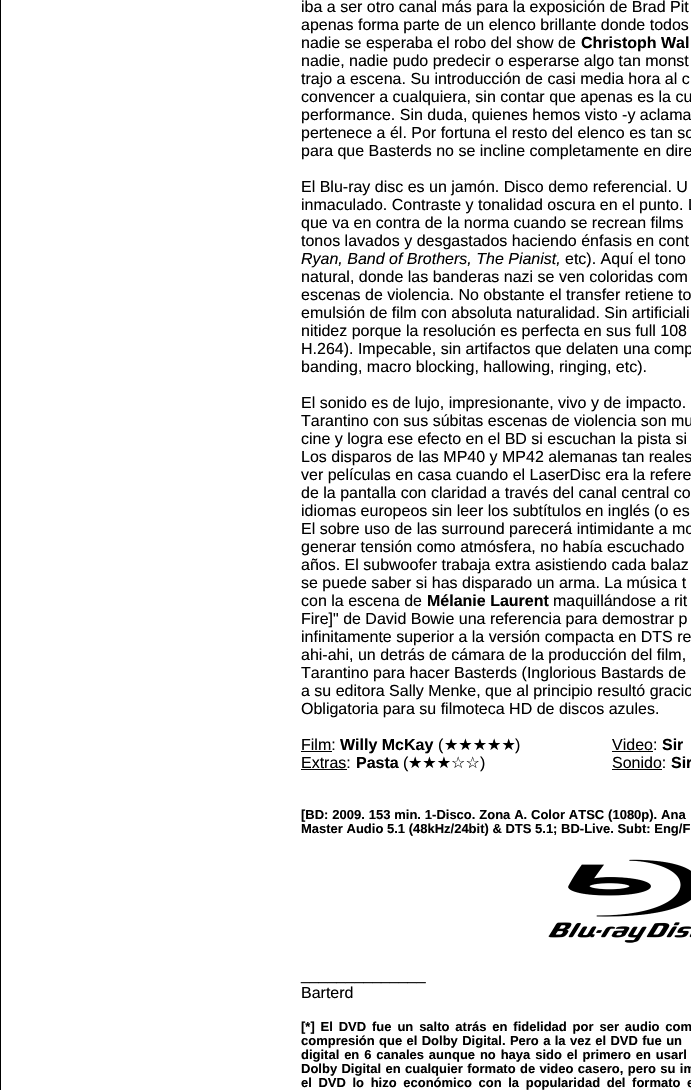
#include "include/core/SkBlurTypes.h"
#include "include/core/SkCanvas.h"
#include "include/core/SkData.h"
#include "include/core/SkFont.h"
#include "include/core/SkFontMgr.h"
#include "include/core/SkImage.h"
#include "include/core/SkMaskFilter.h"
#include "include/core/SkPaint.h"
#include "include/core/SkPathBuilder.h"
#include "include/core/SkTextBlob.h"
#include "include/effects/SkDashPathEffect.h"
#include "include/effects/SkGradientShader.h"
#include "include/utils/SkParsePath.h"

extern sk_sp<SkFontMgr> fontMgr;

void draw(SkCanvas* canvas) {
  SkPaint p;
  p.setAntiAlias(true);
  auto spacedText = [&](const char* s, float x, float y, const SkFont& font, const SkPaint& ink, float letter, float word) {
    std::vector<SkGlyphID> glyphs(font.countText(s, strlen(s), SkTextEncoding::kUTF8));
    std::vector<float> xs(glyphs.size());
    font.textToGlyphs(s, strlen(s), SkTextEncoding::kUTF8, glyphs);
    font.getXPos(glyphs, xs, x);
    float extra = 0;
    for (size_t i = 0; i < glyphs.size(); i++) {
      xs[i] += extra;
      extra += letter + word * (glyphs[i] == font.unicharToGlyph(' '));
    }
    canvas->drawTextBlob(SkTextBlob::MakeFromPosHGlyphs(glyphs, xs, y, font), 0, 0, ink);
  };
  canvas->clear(SK_ColorWHITE);
  p.setStyle(SkPaint::kStroke_Style);
  p.setStrokeWidth(1);
  p.setColor(SK_ColorBLACK);
  canvas->drawRect(SkRect::MakeLTRB(0.5f, -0.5f, 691.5f, 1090.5f), p);
  p.setStyle(SkPaint::kFill_Style);
  canvas->drawRect(SkRect::MakeLTRB(301, 751, 332, 752), p);
  canvas->drawRect(SkRect::MakeLTRB(612, 751, 653, 752), p);
  canvas->drawRect(SkRect::MakeLTRB(301, 769, 347, 770), p);
  canvas->drawRect(SkRect::MakeLTRB(612, 769, 662, 770), p);
  canvas->drawImageRect(SkImages::DeferredFromEncodedData(SkData::MakeFromFileName("images/1.png")), SkRect::MakeLTRB(548, 859, 691, 943), SkSamplingOptions());
  SkFont font1(fontMgr->matchFamilyStyle("Liberation Sans", SkFontStyle::Normal()), 16);
  font1.setSubpixel(true);
  canvas->drawString("iba a ser otro canal más para la exposición de Brad Pit", 301, 12, font1, p);
  canvas->drawString("apenas forma parte de un elenco brillante donde todos", 301, 30, font1, p);
  canvas->drawString("nadie se esperaba el robo del show de", 301, 48, font1, p);
  SkFont font2(fontMgr->matchFamilyStyle("Liberation Sans", SkFontStyle::Bold()), 16);
  font2.setSubpixel(true);
  canvas->drawString("Christoph Wal", 581, 48, font2, p);
  canvas->drawString("nadie, nadie pudo predecir o esperarse algo tan monst", 301, 66, font1, p);
  canvas->drawString("trajo a escena. Su introducción de casi media hora al c", 301, 84, font1, p);
  canvas->drawString("convencer a cualquiera, sin contar que apenas es la cu", 301, 102, font1, p);
  canvas->drawString("performance. Sin duda, quienes hemos visto -y aclama", 301, 120, font1, p);
  canvas->drawString("pertenece a él. Por fortuna el resto del elenco es tan so", 301, 138, font1, p);
  canvas->drawString("para que Basterds no se incline completamente en dire", 301, 156, font1, p);
  canvas->drawString("El Blu-ray disc es un jamón. Disco demo referencial. U", 301, 192, font1, p);
  canvas->drawString("inmaculado. Contraste y tonalidad oscura en el punto. L", 301, 210, font1, p);
  canvas->drawString("que va en contra de la norma cuando se recrean films", 301, 228, font1, p);
  canvas->drawString("tonos lavados y desgastados haciendo énfasis en cont", 301, 246, font1, p);
  SkFont font3(fontMgr->matchFamilyStyle("Liberation Sans", SkFontStyle::Italic()), 16);
  font3.setSubpixel(true);
  canvas->drawString("Ryan, Band of Brothers, The Pianist,", 301, 264, font3, p);
  canvas->drawString("etc). Aquí el tono", 565, 264, font1, p);
  canvas->drawString("natural, donde las banderas nazi se ven coloridas com", 301, 282, font1, p);
  canvas->drawString("escenas de violencia. No obstante el transfer retiene to", 301, 300, font1, p);
  canvas->drawString("emulsión de film con absoluta naturalidad. Sin artificiali", 301, 318, font1, p);
  canvas->drawString("nitidez porque la resolución es perfecta en sus full 108", 301, 336, font1, p);
  canvas->drawString("H.264). Impecable, sin artifactos que delaten una comp", 301, 354, font1, p);
  canvas->drawString("banding, macro blocking, hallowing, ringing, etc).", 301, 372, font1, p);
  canvas->drawString("El sonido es de lujo, impresionante, vivo y de impacto.", 301, 408, font1, p);
  canvas->drawString("Tarantino con sus súbitas escenas de violencia son mu", 301, 426, font1, p);
  canvas->drawString("cine y logra ese efecto en el BD si escuchan la pista si", 301, 444, font1, p);
  canvas->drawString("Los disparos de las MP40 y MP42 alemanas tan reales", 301, 462, font1, p);
  canvas->drawString("ver películas en casa cuando el LaserDisc era la refere", 301, 480, font1, p);
  canvas->drawString("de la pantalla con claridad a través del canal central co", 301, 498, font1, p);
  canvas->drawString("idiomas europeos sin leer los subtítulos en inglés (o es", 301, 516, font1, p);
  canvas->drawString("El sobre uso de las surround parecerá intimidante a mo", 301, 534, font1, p);
  canvas->drawString("generar tensión como atmósfera, no había escuchado", 301, 552, font1, p);
  canvas->drawString("años. El subwoofer trabaja extra asistiendo cada balaz", 301, 570, font1, p);
  canvas->drawString("se puede saber si has disparado un arma. La música t", 301, 588, font1, p);
  canvas->drawString("con la escena de", 301, 606, font1, p);
  canvas->drawString("Mélanie Laurent", 427, 606, font2, p);
  canvas->drawString("maquillándose a rit", 553, 606, font1, p);
  canvas->drawString("Fire]\" de David Bowie una referencia para demostrar p", 301, 624, font1, p);
  canvas->drawString("infinitamente superior a la versión compacta en DTS re", 301, 642, font1, p);
  canvas->drawString("ahi-ahi, un detrás de cámara de la producción del film,", 301, 660, font1, p);
  canvas->drawString("Tarantino para hacer Basterds (Inglorious Bastards de", 301, 678, font1, p);
  canvas->drawString("a su editora Sally Menke, que al principio resultó gracio", 301, 696, font1, p);
  canvas->drawString("Obligatoria para su filmoteca HD de discos azules.", 301, 714, font1, p);
  canvas->drawString("Film:", 301, 750, font1, p);
  canvas->drawString("Willy McKay", 340, 750, font2, p);
  canvas->drawString("(", 438, 750, font1, p);
  SkFont font4(fontMgr->matchFamilyStyle("DejaVu Sans", SkFontStyle::Normal()), 16);
  font4.setSubpixel(true);
  canvas->drawString("★★★★★", 444, 750, font4, p);
  canvas->drawString(")", 515, 750, font1, p);
  canvas->drawString("Video:", 612, 750, font1, p);
  canvas->drawString("Sir", 662, 750, font2, p);
  canvas->drawString("Extras:", 301, 768, font1, p);
  canvas->drawString("Pasta", 356, 768, font2, p);
  canvas->drawString("(", 403, 768, font1, p);
  canvas->drawString("★★★☆☆", 408, 768, font4, p);
  canvas->drawString(")", 480, 768, font1, p);
  canvas->drawString("Sonido:", 612, 768, font1, p);
  canvas->drawString("Sir", 671, 768, font2, p);
  SkFont font5(fontMgr->matchFamilyStyle("Liberation Sans", SkFontStyle::Bold()), 13);
  font5.setSubpixel(true);
  spacedText("[BD: 2009. 153 min. 1-Disco. Zona A. Color ATSC (1080p). Ana", 301, 819, font5, p, 0, 0.25f);
  canvas->drawString("Master Audio 5.1 (48kHz/24bit) & DTS 5.1; BD-Live. Subt: Eng/F", 301, 833, font5, p);
  canvas->drawString("______________", 301, 980, font1, p);
  canvas->drawString("Barterd", 301, 998, font1, p);
  spacedText("[*] El DVD fue un salto atrás en fidelidad por ser audio com", 301, 1031, font5, p, 0, 2.25f);
  spacedText("compresión que el Dolby Digital. Pero a la vez el DVD fue un", 301, 1045, font5, p, 0, 0.75f);
  spacedText("digital en 6 canales aunque no haya sido el primero en usarl", 301, 1059, font5, p, 0, 1.25f);
  spacedText("Dolby Digital en cualquier formato de video casero, pero su im", 301, 1073, font5, p, 0, 0.75f);
  spacedText("el DVD lo hizo económico con la popularidad del formato e", 301, 1087, font5, p, 0, 3);
}
